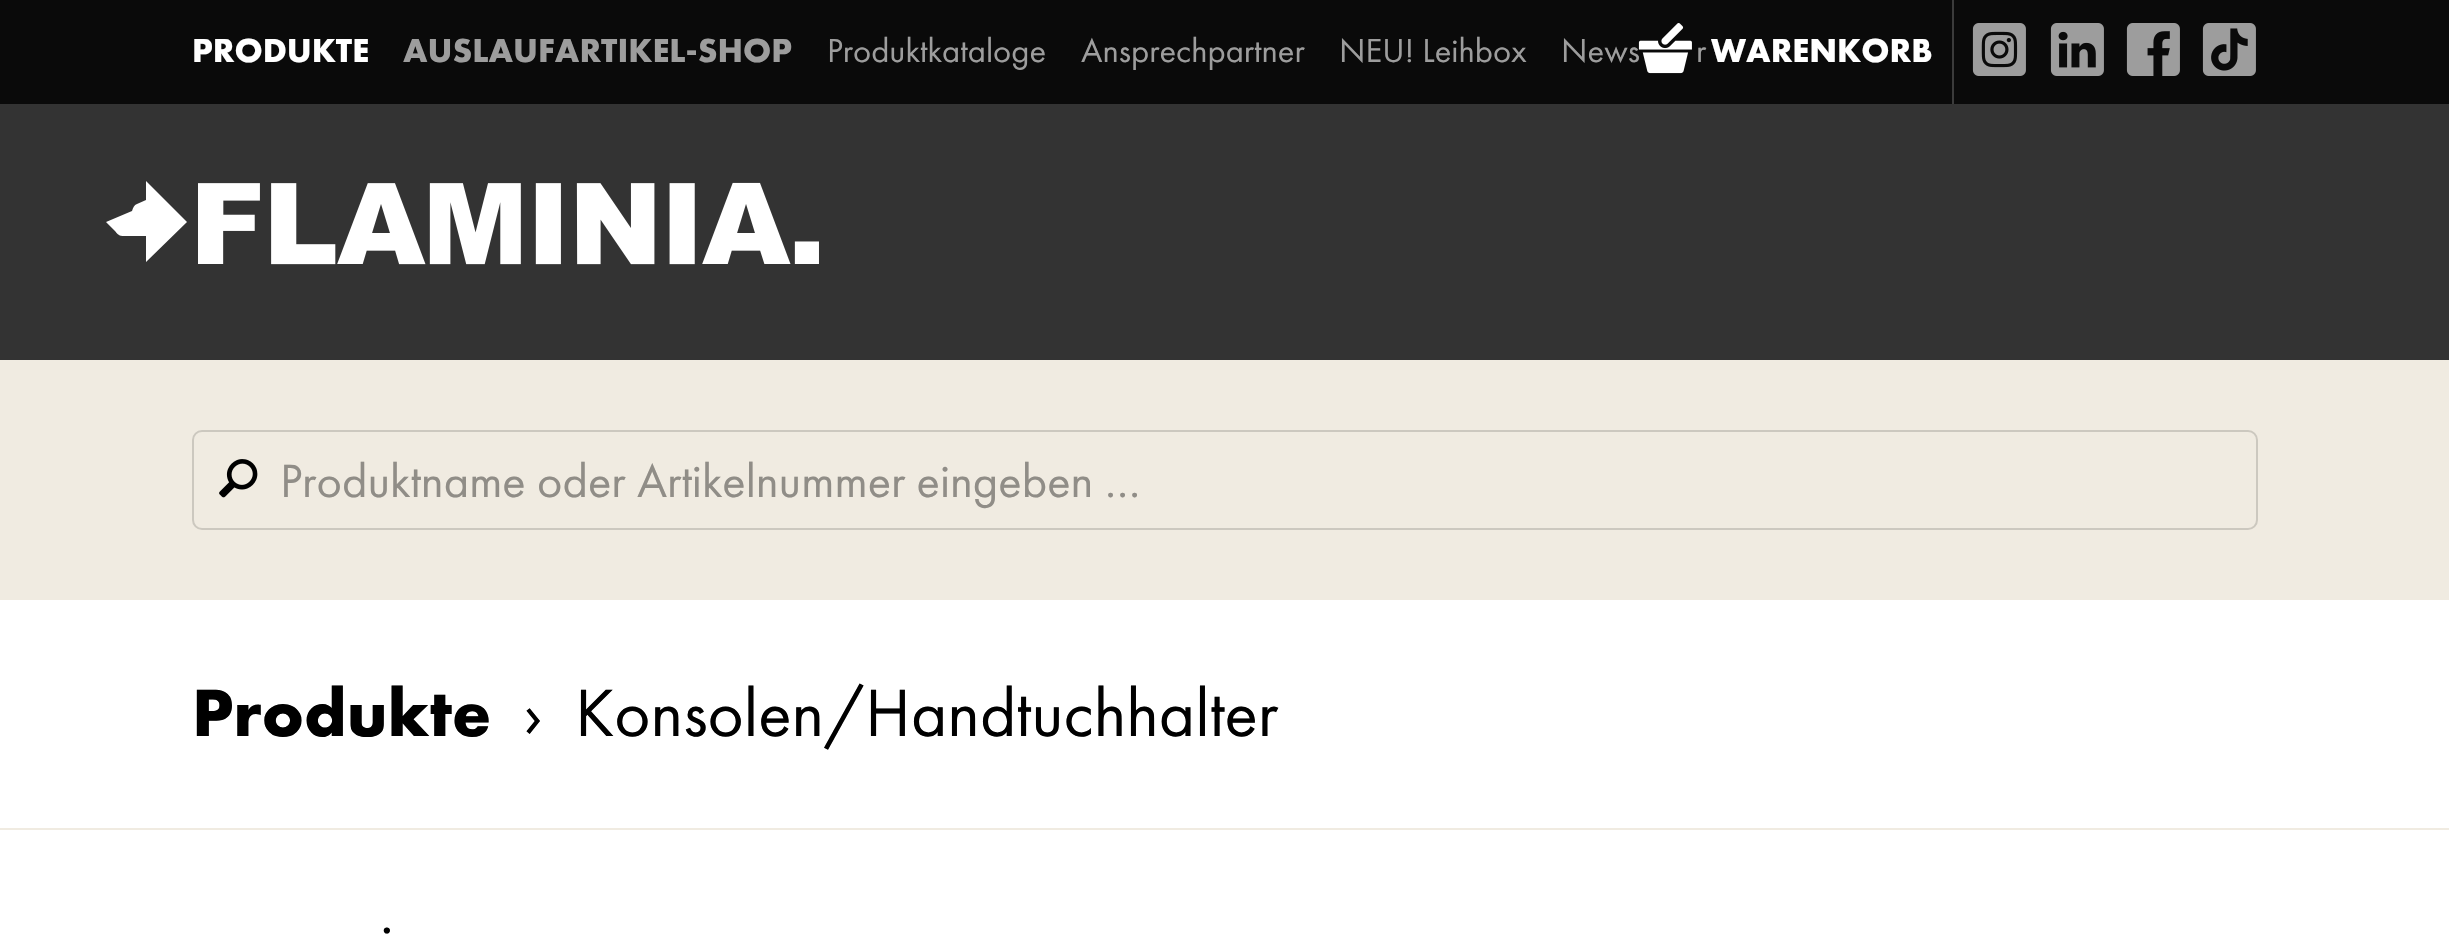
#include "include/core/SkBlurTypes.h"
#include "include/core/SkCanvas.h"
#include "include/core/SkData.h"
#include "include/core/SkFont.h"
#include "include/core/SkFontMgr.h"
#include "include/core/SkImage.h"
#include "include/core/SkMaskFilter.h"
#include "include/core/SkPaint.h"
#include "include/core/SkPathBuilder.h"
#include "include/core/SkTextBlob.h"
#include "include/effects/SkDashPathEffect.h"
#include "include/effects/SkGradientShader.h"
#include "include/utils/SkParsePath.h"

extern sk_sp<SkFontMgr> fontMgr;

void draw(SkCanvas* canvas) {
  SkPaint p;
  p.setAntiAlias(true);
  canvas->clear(SkColorSetRGB(51, 51, 51));
  p.setColor(SkColorSetRGB(10, 10, 10));
  canvas->drawRect(SkRect::MakeLTRB(0, 0, 2449, 104), p);
  p.setColor(SkColorSetRGB(59, 59, 59));
  canvas->drawRect(SkRect::MakeLTRB(1952, 0, 1954, 104), p);
  canvas->drawImageRect(SkImages::DeferredFromEncodedData(SkData::MakeFromFileName("images/2.png")), SkRect::MakeLTRB(1972, 23, 2026, 76), SkSamplingOptions());
  canvas->drawImageRect(SkImages::DeferredFromEncodedData(SkData::MakeFromFileName("images/3.png")), SkRect::MakeLTRB(2050, 23, 2104, 76), SkSamplingOptions());
  canvas->drawImageRect(SkImages::DeferredFromEncodedData(SkData::MakeFromFileName("images/4.png")), SkRect::MakeLTRB(2126, 23, 2180, 76), SkSamplingOptions());
  canvas->drawImageRect(SkImages::DeferredFromEncodedData(SkData::MakeFromFileName("images/5.png")), SkRect::MakeLTRB(2202, 23, 2256, 76), SkSamplingOptions());
  p.setColor(SK_ColorWHITE);
  canvas->drawPath(SkPathBuilder().moveTo(137, 204).cubicTo(134, 205, 133, 208, 132, 211).lineTo(106, 222).lineTo(115, 231).cubicTo(119, 236, 120, 236, 126, 236).lineTo(146, 236).lineTo(146, 262).lineTo(187, 222).lineTo(146, 181).lineTo(146, 200).close().detach(), p);
  canvas->drawImageRect(SkImages::DeferredFromEncodedData(SkData::MakeFromFileName("images/6.png")), SkRect::MakeLTRB(198, 182, 819, 265), SkSamplingOptions());
  p.setColor(SkColorSetRGB(240, 235, 225));
  canvas->drawRect(SkRect::MakeLTRB(0, 360, 2449, 600), p);
  p.setStyle(SkPaint::kStroke_Style);
  p.setStrokeWidth(2);
  p.setColor(SkColorSetRGB(204, 200, 191));
  canvas->drawRoundRect(SkRect::MakeLTRB(193, 431, 2257, 529), 9, 9, p);
  canvas->drawImageRect(SkImages::DeferredFromEncodedData(SkData::MakeFromFileName("images/7.png")), SkRect::MakeLTRB(219, 459, 258, 498), SkSamplingOptions());
  p.setStyle(SkPaint::kFill_Style);
  p.setColor(SK_ColorWHITE);
  canvas->drawRect(SkRect::MakeLTRB(0, 600, 2449, 935), p);
  p.setColor(SkColorSetRGB(240, 235, 225));
  canvas->drawRect(SkRect::MakeLTRB(0, 828, 2449, 830), p);
  SkFont font1(fontMgr->matchFamilyStyle("Futura PT", SkFontStyle::Bold()), 34.6f);
  font1.setSubpixel(true);
  p.setColor(SK_ColorWHITE);
  canvas->drawString("PRODUKTE", 192, 62, font1, p);
  p.setColor(SkColorSetRGB(157, 157, 157));
  canvas->drawString("AUSLAUFARTIKEL-SHOP", 403, 62, font1, p);
  SkFont font2(fontMgr->matchFamilyStyle("Futura PT", SkFontStyle::Normal()), 34.6f);
  font2.setSubpixel(true);
  canvas->drawString("Produktkataloge", 827, 62, font2, p);
  canvas->drawString("Ansprechpartner", 1081, 62, font2, p);
  canvas->drawString("NEU! Leihbox", 1339, 62, font2, p);
  canvas->drawString("News", 1561, 62, font2, p);
  canvas->drawString("r", 1696, 62, font2, p);
  canvas->drawImageRect(SkImages::DeferredFromEncodedData(SkData::MakeFromFileName("images/1.png")), SkRect::MakeLTRB(1638, 23, 1692, 74), SkSamplingOptions());
  p.setColor(SK_ColorWHITE);
  canvas->drawString("WARENKORB", 1711, 62, font1, p);
  SkFont font3(fontMgr->matchFamilyStyle("Futura PT", SkFontStyle::Normal()), 48.5f);
  font3.setSubpixel(true);
  p.setColor(SkColorSetRGB(144, 141, 135));
  canvas->drawString("Produktname oder Artikelnummer eingeben …", 280, 497, font3, p);
  SkFont font4(fontMgr->matchFamilyStyle("Futura PT", SkFontStyle::Bold()), 69.25f);
  font4.setSubpixel(true);
  p.setColor(SK_ColorBLACK);
  canvas->drawString("Produkte", 192, 736, font4, p);
  SkFont font5(fontMgr->matchFamilyStyle("Futura PT", SkFontStyle::Normal()), 69.25f);
  font5.setSubpixel(true);
  canvas->drawString("›", 523, 736, font5, p);
  canvas->drawString("Konsolen/Handtuchhalter", 575, 736, font5, p);
  canvas->drawString("·", 382, 947, font3, p);
}
